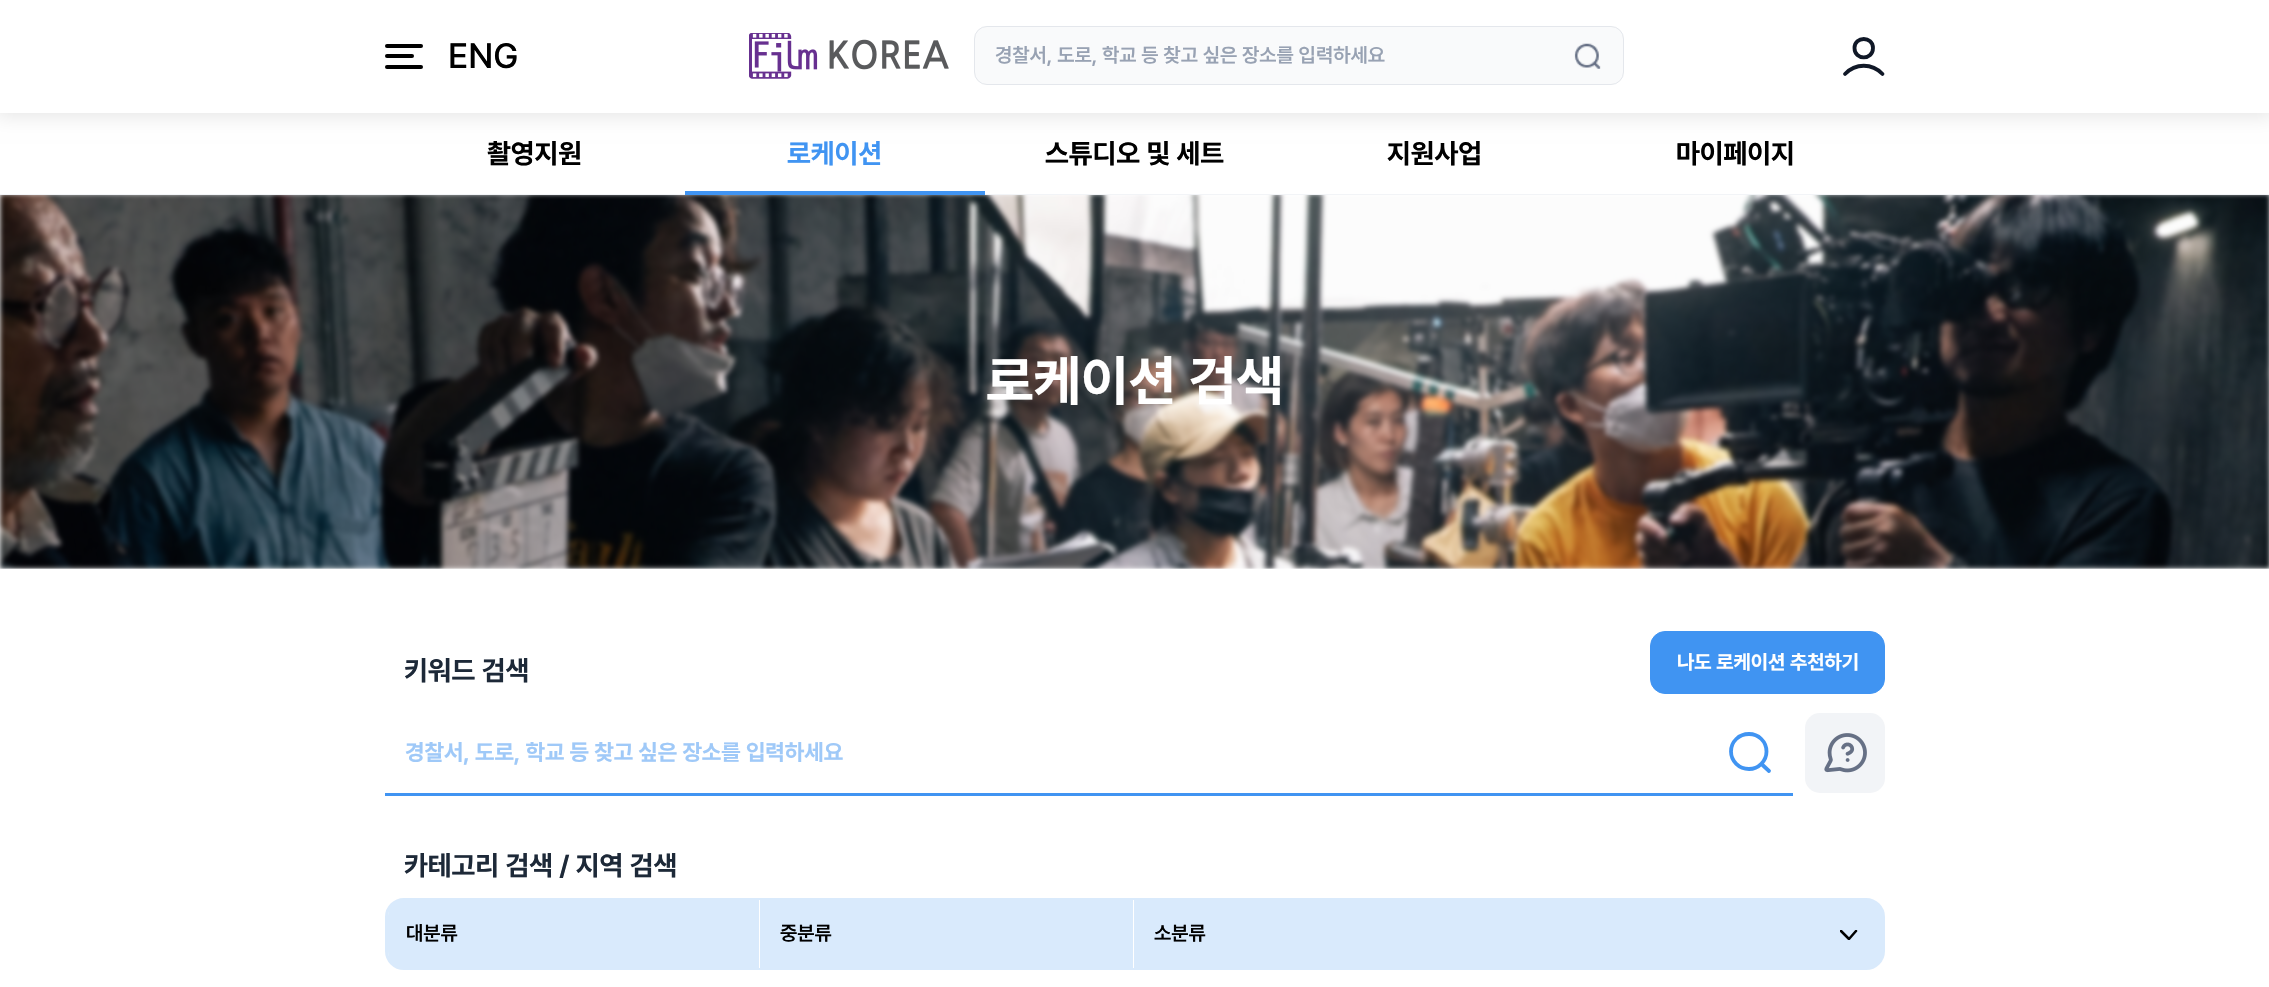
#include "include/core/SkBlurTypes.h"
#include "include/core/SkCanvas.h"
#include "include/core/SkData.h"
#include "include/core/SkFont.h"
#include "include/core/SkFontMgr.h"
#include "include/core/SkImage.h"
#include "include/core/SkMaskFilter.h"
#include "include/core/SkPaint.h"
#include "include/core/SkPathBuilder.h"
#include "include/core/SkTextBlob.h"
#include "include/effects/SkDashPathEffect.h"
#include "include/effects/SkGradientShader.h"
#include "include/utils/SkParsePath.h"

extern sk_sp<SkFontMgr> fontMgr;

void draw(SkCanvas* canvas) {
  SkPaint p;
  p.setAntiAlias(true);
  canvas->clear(SK_ColorWHITE);
  p.setColor(SkColorSetARGB(26, 0, 0, 0));
  p.setMaskFilter(SkMaskFilter::MakeBlur(kNormal_SkBlurStyle, 9.5f));
  canvas->drawRect(SkRect::MakeLTRB(-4, -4, 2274, 116), p);
  p.setMaskFilter(nullptr);
  p.setColor(SK_ColorWHITE);
  canvas->drawRect(SkRect::MakeLTRB(0, 0, 2269, 113), p);
  p.setColor(SK_ColorBLACK);
  canvas->drawRoundRect(SkRect::MakeLTRB(385, 44, 423, 48), 2, 2, p);
  canvas->drawRoundRect(SkRect::MakeLTRB(385, 54, 414, 58), 2, 2, p);
  canvas->drawRoundRect(SkRect::MakeLTRB(385, 65, 423, 69), 2, 2, p);
  canvas->drawImageRect(SkImages::DeferredFromEncodedData(SkData::MakeFromFileName("images/1.png")), SkRect::MakeLTRB(749, 33, 949, 79), SkSamplingOptions());
  p.setColor(SkColorSetRGB(249, 250, 251));
  canvas->drawRoundRect(SkRect::MakeLTRB(974.5f, 26.5f, 1623.5f, 84.5f), 12.5f, 12.5f, p);
  p.setStyle(SkPaint::kStroke_Style);
  p.setStrokeWidth(1);
  p.setColor(SkColorSetRGB(228, 231, 236));
  canvas->drawRoundRect(SkRect::MakeLTRB(974.5f, 26.5f, 1623.5f, 84.5f), 12.5f, 12.5f, p);
  canvas->drawImageRect(SkImages::DeferredFromEncodedData(SkData::MakeFromFileName("images/2.png")), SkRect::MakeLTRB(1574, 43, 1601, 69), SkSamplingOptions());
  p.setStrokeWidth(3.8f);
  p.setStrokeCap(SkPaint::kRound_Cap);
  p.setStrokeJoin(SkPaint::kRound_Join);
  p.setColor(SkColorSetRGB(16, 24, 39));
  canvas->drawPath(SkPathBuilder().moveTo(1845, 74).cubicTo(1855.5f, 63, 1872, 63, 1882.5f, 74).moveTo(1873, 48).cubicTo(1873, 60.5f, 1854.5f, 60.5f, 1854.5f, 48).cubicTo(1854.5f, 36, 1873, 36, 1873, 48).close().detach(), p);
  p.setStyle(SkPaint::kFill_Style);
  p.setColor(SkColorSetRGB(242, 244, 247));
  canvas->drawRect(SkRect::MakeLTRB(0, 194, 2269, 195), p);
  p.setColor(SkColorSetRGB(64, 148, 242));
  canvas->drawRect(SkRect::MakeLTRB(685, 191, 985, 195), p);
  canvas->drawImageRect(SkImages::DeferredFromEncodedData(SkData::MakeFromFileName("images/3.png")), SkRect::MakeLTRB(0, 195, 2269, 569), SkSamplingOptions());
  canvas->drawRoundRect(SkRect::MakeLTRB(1650.5f, 631.5f, 1884.5f, 693.5f), 14.5f, 14.5f, p);
  p.setStyle(SkPaint::kStroke_Style);
  p.setStrokeWidth(1);
  p.setStrokeCap(SkPaint::kButt_Cap);
  p.setStrokeJoin(SkPaint::kMiter_Join);
  canvas->drawRoundRect(SkRect::MakeLTRB(1650.5f, 631.5f, 1884.5f, 693.5f), 14.5f, 14.5f, p);
  p.setStyle(SkPaint::kFill_Style);
  canvas->drawRect(SkRect::MakeLTRB(385, 793, 1793, 796), p);
  p.setStyle(SkPaint::kStroke_Style);
  p.setStrokeWidth(3.8f);
  p.setStrokeCap(SkPaint::kRound_Cap);
  p.setStrokeJoin(SkPaint::kRound_Join);
  canvas->drawPath(SkPathBuilder().moveTo(1769, 771).lineTo(1761.5f, 764).moveTo(1766.5f, 751.5f).cubicTo(1766.5f, 761, 1758.5f, 769, 1749, 769).cubicTo(1739, 769, 1731, 761, 1731, 751.5f).cubicTo(1731, 741.5f, 1739, 734, 1749, 734).cubicTo(1758.5f, 734, 1766.5f, 741.5f, 1766.5f, 751.5f).close().detach(), p);
  p.setStyle(SkPaint::kFill_Style);
  p.setColor(SkColorSetRGB(242, 244, 247));
  canvas->drawRoundRect(SkRect::MakeLTRB(1805, 713, 1885, 793), 15, 15, p);
  canvas->drawImageRect(SkImages::DeferredFromEncodedData(SkData::MakeFromFileName("images/4.png")), SkRect::MakeLTRB(1824, 733, 1867, 773), SkSamplingOptions());
  p.setStyle(SkPaint::kStroke_Style);
  p.setStrokeWidth(3);
  p.setStrokeCap(SkPaint::kButt_Cap);
  p.setStrokeJoin(SkPaint::kMiter_Join);
  p.setColor(SkColorSetRGB(217, 234, 252));
  canvas->drawRoundRect(SkRect::MakeLTRB(386.5f, 899.5f, 1883.5f, 968.5f), 17.5f, 17.5f, p);
  p.setStyle(SkPaint::kFill_Style);
  canvas->drawRect(SkRect::MakeLTRB(760, 900, 761, 968), p);
  canvas->drawPath(SkPathBuilder().moveTo(404, 900).lineTo(760, 900).lineTo(760, 968).lineTo(404, 968).cubicTo(395, 968, 388, 961, 388, 952).lineTo(388, 916).cubicTo(388, 907, 395, 900, 404, 900).close().detach(), p);
  p.setColor(SK_ColorWHITE);
  canvas->drawRect(SkRect::MakeLTRB(759, 900, 760, 968), p);
  p.setColor(SkColorSetRGB(217, 234, 252));
  canvas->drawRect(SkRect::MakeLTRB(1134, 900, 1135, 968), p);
  canvas->drawRect(SkRect::MakeLTRB(761, 901, 1133, 967), p);
  p.setColor(SK_ColorWHITE);
  canvas->drawRect(SkRect::MakeLTRB(1133, 900, 1134, 968), p);
  canvas->save();
  canvas->clipPath(SkPathBuilder().moveTo(404, 900).lineTo(1867, 900).cubicTo(1876, 900, 1883, 907, 1883, 916).lineTo(1883, 952).cubicTo(1883, 961, 1876, 968, 1867, 968).lineTo(404, 968).cubicTo(395, 968, 388, 961, 388, 952).lineTo(388, 916).cubicTo(388, 907, 395, 900, 404, 900).close().detach(), true);
  p.setColor(SkColorSetRGB(217, 234, 252));
  canvas->drawRect(SkRect::MakeLTRB(1881, 900, 1882, 968), p);
  canvas->drawRect(SkRect::MakeLTRB(1135, 900, 1881, 968), p);
  canvas->restore();
  canvas->save();
  canvas->clipRect(SkRect::MakeLTRB(1840, 930, 1858, 940));
  p.setStyle(SkPaint::kStroke_Style);
  p.setStrokeWidth(2.5f);
  p.setStrokeCap(SkPaint::kRound_Cap);
  p.setStrokeJoin(SkPaint::kRound_Join);
  p.setColor(SK_ColorBLACK);
  canvas->drawPath(SkPathBuilder().moveTo(1841, 931).lineTo(1849, 939).lineTo(1856, 931).detach(), p);
  canvas->restore();
  SkFont font1(fontMgr->matchFamilyStyle("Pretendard", SkFontStyle(500, SkFontStyle::kNormal_Width, SkFontStyle::kUpright_Slant)), 35);
  font1.setSubpixel(true);
  p.setStyle(SkPaint::kFill_Style);
  canvas->drawString("ENG", 448, 68, font1, p);
  SkFont font2(fontMgr->matchFamilyStyle("Pretendard", SkFontStyle(600, SkFontStyle::kNormal_Width, SkFontStyle::kUpright_Slant)), 20);
  font2.setSubpixel(true);
  p.setColor(SkColorSetRGB(152, 162, 179));
  canvas->drawString("경찰서, 도로, 학교 등 찾고 싶은 장소를 입력하세요", 995, 62, font2, p);
  SkFont font3(fontMgr->matchFamilyStyle("Pretendard", SkFontStyle::Bold()), 27.5f);
  font3.setSubpixel(true);
  p.setColor(SK_ColorBLACK);
  canvas->drawString("촬영지원", 487, 163, font3, p);
  p.setColor(SkColorSetRGB(64, 148, 242));
  canvas->drawString("로케이션", 787, 163, font3, p);
  p.setColor(SK_ColorBLACK);
  canvas->drawString("스튜디오 및 세트", 1045, 163, font3, p);
  canvas->drawString("지원사업", 1387, 163, font3, p);
  canvas->drawString("마이페이지", 1676, 163, font3, p);
  SkFont font4(fontMgr->matchFamilyStyle("Pretendard", SkFontStyle::Bold()), 55);
  font4.setSubpixel(true);
  p.setColor(SK_ColorWHITE);
  canvas->drawString("로케이션 검색", 986, 400, font4, p);
  p.setColor(SkColorSetRGB(29, 41, 56));
  canvas->drawString("키워드 검색", 404, 680, font3, p);
  SkFont font5(fontMgr->matchFamilyStyle("Pretendard", SkFontStyle::Bold()), 20);
  font5.setSubpixel(true);
  p.setColor(SK_ColorWHITE);
  canvas->drawString("나도 로케이션 추천하기", 1677, 669, font5, p);
  SkFont font6(fontMgr->matchFamilyStyle("Pretendard", SkFontStyle::Bold()), 22.5f);
  font6.setSubpixel(true);
  p.setColor(SkColorSetRGB(159, 201, 248));
  canvas->drawString("경찰서, 도로, 학교 등 찾고 싶은 장소를 입력하세요", 405, 760, font6, p);
  p.setColor(SkColorSetRGB(29, 41, 56));
  canvas->drawString("카테고리 검색 / 지역 검색", 404, 875, font3, p);
  p.setColor(SK_ColorBLACK);
  canvas->drawString("대분류", 406, 940, font2, p);
  canvas->drawString("중분류", 780, 940, font2, p);
  canvas->drawString("소분류", 1154, 940, font2, p);
}
